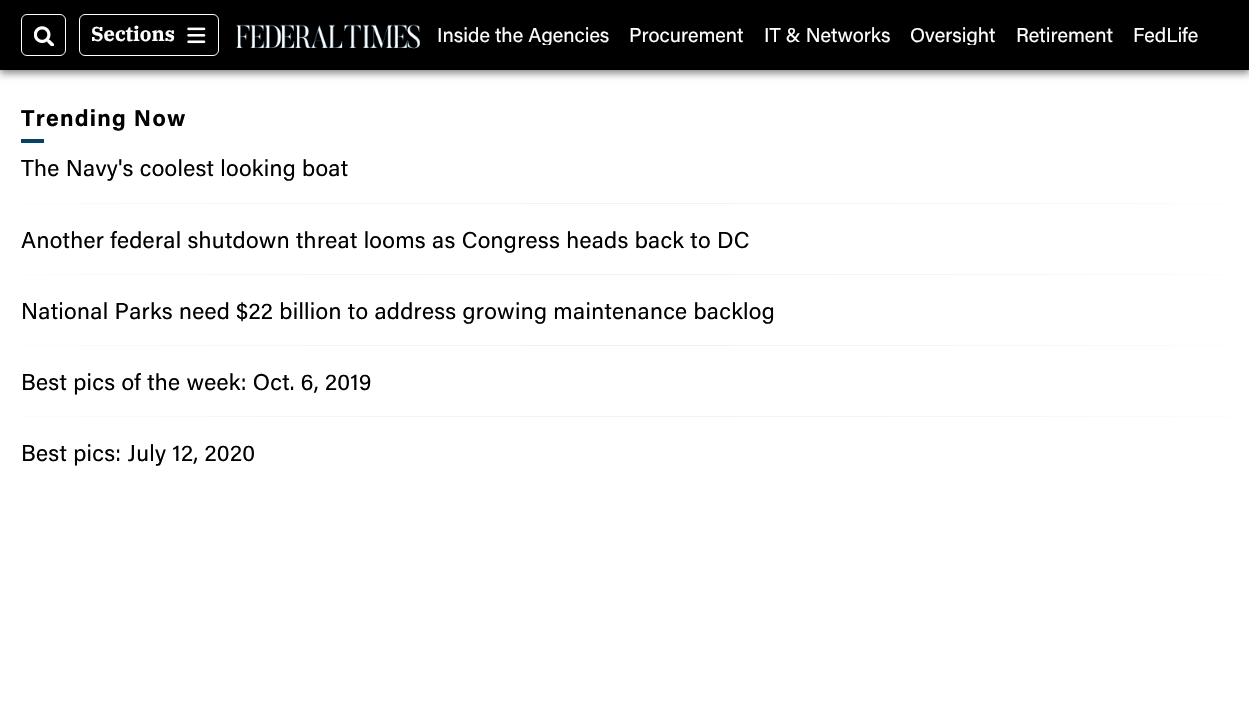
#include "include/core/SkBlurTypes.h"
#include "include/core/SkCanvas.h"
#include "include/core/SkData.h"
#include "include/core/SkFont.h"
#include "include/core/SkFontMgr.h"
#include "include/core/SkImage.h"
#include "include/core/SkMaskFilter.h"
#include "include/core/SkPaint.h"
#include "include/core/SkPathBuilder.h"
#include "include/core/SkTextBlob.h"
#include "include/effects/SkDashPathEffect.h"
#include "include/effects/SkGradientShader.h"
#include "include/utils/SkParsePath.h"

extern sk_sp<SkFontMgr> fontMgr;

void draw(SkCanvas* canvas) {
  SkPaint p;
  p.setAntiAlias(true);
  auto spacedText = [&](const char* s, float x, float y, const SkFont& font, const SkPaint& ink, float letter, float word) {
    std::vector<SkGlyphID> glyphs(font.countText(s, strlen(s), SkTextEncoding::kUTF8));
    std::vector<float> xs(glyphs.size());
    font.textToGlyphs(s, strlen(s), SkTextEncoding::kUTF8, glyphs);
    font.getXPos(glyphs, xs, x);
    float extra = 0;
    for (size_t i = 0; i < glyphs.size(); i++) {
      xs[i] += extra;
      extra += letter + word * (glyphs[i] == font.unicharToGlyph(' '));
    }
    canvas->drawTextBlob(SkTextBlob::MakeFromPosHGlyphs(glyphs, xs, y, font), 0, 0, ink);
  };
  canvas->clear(SK_ColorWHITE);
  p.setColor(SkColorSetARGB(128, 0, 0, 0));
  p.setMaskFilter(SkMaskFilter::MakeBlur(kNormal_SkBlurStyle, 4));
  canvas->drawRect(SkRect::MakeLTRB(0, 3, 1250, 73), p);
  p.setMaskFilter(nullptr);
  p.setColor(SK_ColorBLACK);
  canvas->drawRect(SkRect::MakeLTRB(0, 0, 1249, 70), p);
  p.setStyle(SkPaint::kStroke_Style);
  p.setStrokeWidth(1);
  p.setColor(SK_ColorWHITE);
  canvas->drawRoundRect(SkRect::MakeLTRB(21.5f, 14.5f, 65.5f, 55.5f), 5.5f, 5.5f, p);
  canvas->drawImageRect(SkImages::DeferredFromEncodedData(SkData::MakeFromFileName("images/1.png")), SkRect::MakeLTRB(34, 26, 54, 46), SkSamplingOptions());
  canvas->drawRoundRect(SkRect::MakeLTRB(79.5f, 14.5f, 218.5f, 55.5f), 5.5f, 5.5f, p);
  canvas->drawImageRect(SkImages::DeferredFromEncodedData(SkData::MakeFromFileName("images/2.png")), SkRect::MakeLTRB(187, 27, 206, 44), SkSamplingOptions());
  canvas->drawImageRect(SkImages::DeferredFromEncodedData(SkData::MakeFromFileName("images/3.png")), SkRect::MakeLTRB(236, 24, 420, 49), SkSamplingOptions());
  p.setStyle(SkPaint::kFill_Style);
  p.setColor(SkColorSetRGB(6, 66, 101));
  canvas->drawRect(SkRect::MakeLTRB(21, 139, 44, 143), p);
  {
    const SkColor colors[] = {SkColorSetRGB(226, 226, 226), SK_ColorWHITE};
    const float stops[] = {0, 1};
    SkMatrix m = SkMatrix::Translate(626, 203).preScale(855, 0.9f);
    p.setShader(SkGradientShader::MakeRadial({0, 0}, 1, colors, stops, 2, SkTileMode::kClamp, 0, &m));
    p.setAlpha(255);
  }
  canvas->drawRect(SkRect::MakeLTRB(21, 203, 1230, 204), p);
  {
    const SkColor colors[] = {SkColorSetRGB(226, 226, 226), SK_ColorWHITE};
    const float stops[] = {0, 1};
    SkMatrix m = SkMatrix::Translate(626, 274).preScale(855, 0.9f);
    p.setShader(SkGradientShader::MakeRadial({0, 0}, 1, colors, stops, 2, SkTileMode::kClamp, 0, &m));
    p.setAlpha(255);
  }
  canvas->drawRect(SkRect::MakeLTRB(21, 274, 1230, 275), p);
  {
    const SkColor colors[] = {SkColorSetRGB(226, 226, 226), SK_ColorWHITE};
    const float stops[] = {0, 1};
    SkMatrix m = SkMatrix::Translate(626, 346).preScale(855, 0.9f);
    p.setShader(SkGradientShader::MakeRadial({0, 0}, 1, colors, stops, 2, SkTileMode::kClamp, 0, &m));
    p.setAlpha(255);
  }
  canvas->drawRect(SkRect::MakeLTRB(21, 345, 1230, 346), p);
  {
    const SkColor colors[] = {SkColorSetRGB(226, 226, 226), SK_ColorWHITE};
    const float stops[] = {0, 1};
    SkMatrix m = SkMatrix::Translate(626, 417).preScale(855, 0.9f);
    p.setShader(SkGradientShader::MakeRadial({0, 0}, 1, colors, stops, 2, SkTileMode::kClamp, 0, &m));
    p.setAlpha(255);
  }
  canvas->drawRect(SkRect::MakeLTRB(21, 416, 1230, 417), p);
  SkFont font1(fontMgr->matchFamilyStyle("IBM Plex Serif", SkFontStyle::Bold()), 20);
  font1.setSubpixel(true);
  p.setShader(nullptr);
  p.setColor(SK_ColorWHITE);
  canvas->drawString("Sections", 91, 41, font1, p);
  canvas->save();
  canvas->clipRect(SkRect::MakeLTRB(438, 25, 1213, 45));
  SkFont font2(fontMgr->matchFamilyStyle("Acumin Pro", SkFontStyle::Normal()), 20);
  font2.setSubpixel(true);
  canvas->drawString("Inside the Agencies", 437, 42, font2, p);
  canvas->restore();
  canvas->drawString("Procurement", 629, 42, font2, p);
  canvas->drawString("IT & Networks", 764, 42, font2, p);
  canvas->save();
  canvas->clipRect(SkRect::MakeLTRB(438, 25, 1213, 45));
  canvas->drawString("Oversight", 910, 42, font2, p);
  canvas->restore();
  canvas->drawString("Retirement", 1016, 42, font2, p);
  canvas->drawString("FedLife", 1133, 42, font2, p);
  canvas->save();
  canvas->clipRect(SkRect::MakeLTRB(21, 103, 1230, 143));
  SkFont font3(fontMgr->matchFamilyStyle("Acumin Pro", SkFontStyle::Bold()), 22.9f);
  font3.setSubpixel(true);
  p.setColor(SK_ColorBLACK);
  spacedText("Trending Now", 21, 126, font3, p, 1.25f, 0);
  canvas->restore();
  SkFont font4(fontMgr->matchFamilyStyle("Acumin Pro", SkFontStyle::Normal()), 22.9f);
  font4.setSubpixel(true);
  spacedText("The Navy's coolest looking boat", 21, 176, font4, p, 0.3f, 0);
  spacedText("Another federal shutdown threat looms as Congress heads back to DC", 21, 248, font4, p, 0.3f, 0);
  spacedText("National Parks need $22 billion to address growing maintenance backlog", 21, 319, font4, p, 0.3f, 0);
  spacedText("Best pics of the week: Oct. 6, 2019", 21, 390, font4, p, 0.3f, 0);
  spacedText("Best pics: July 12, 2020", 21, 461, font4, p, 0.3f, 0);
}
